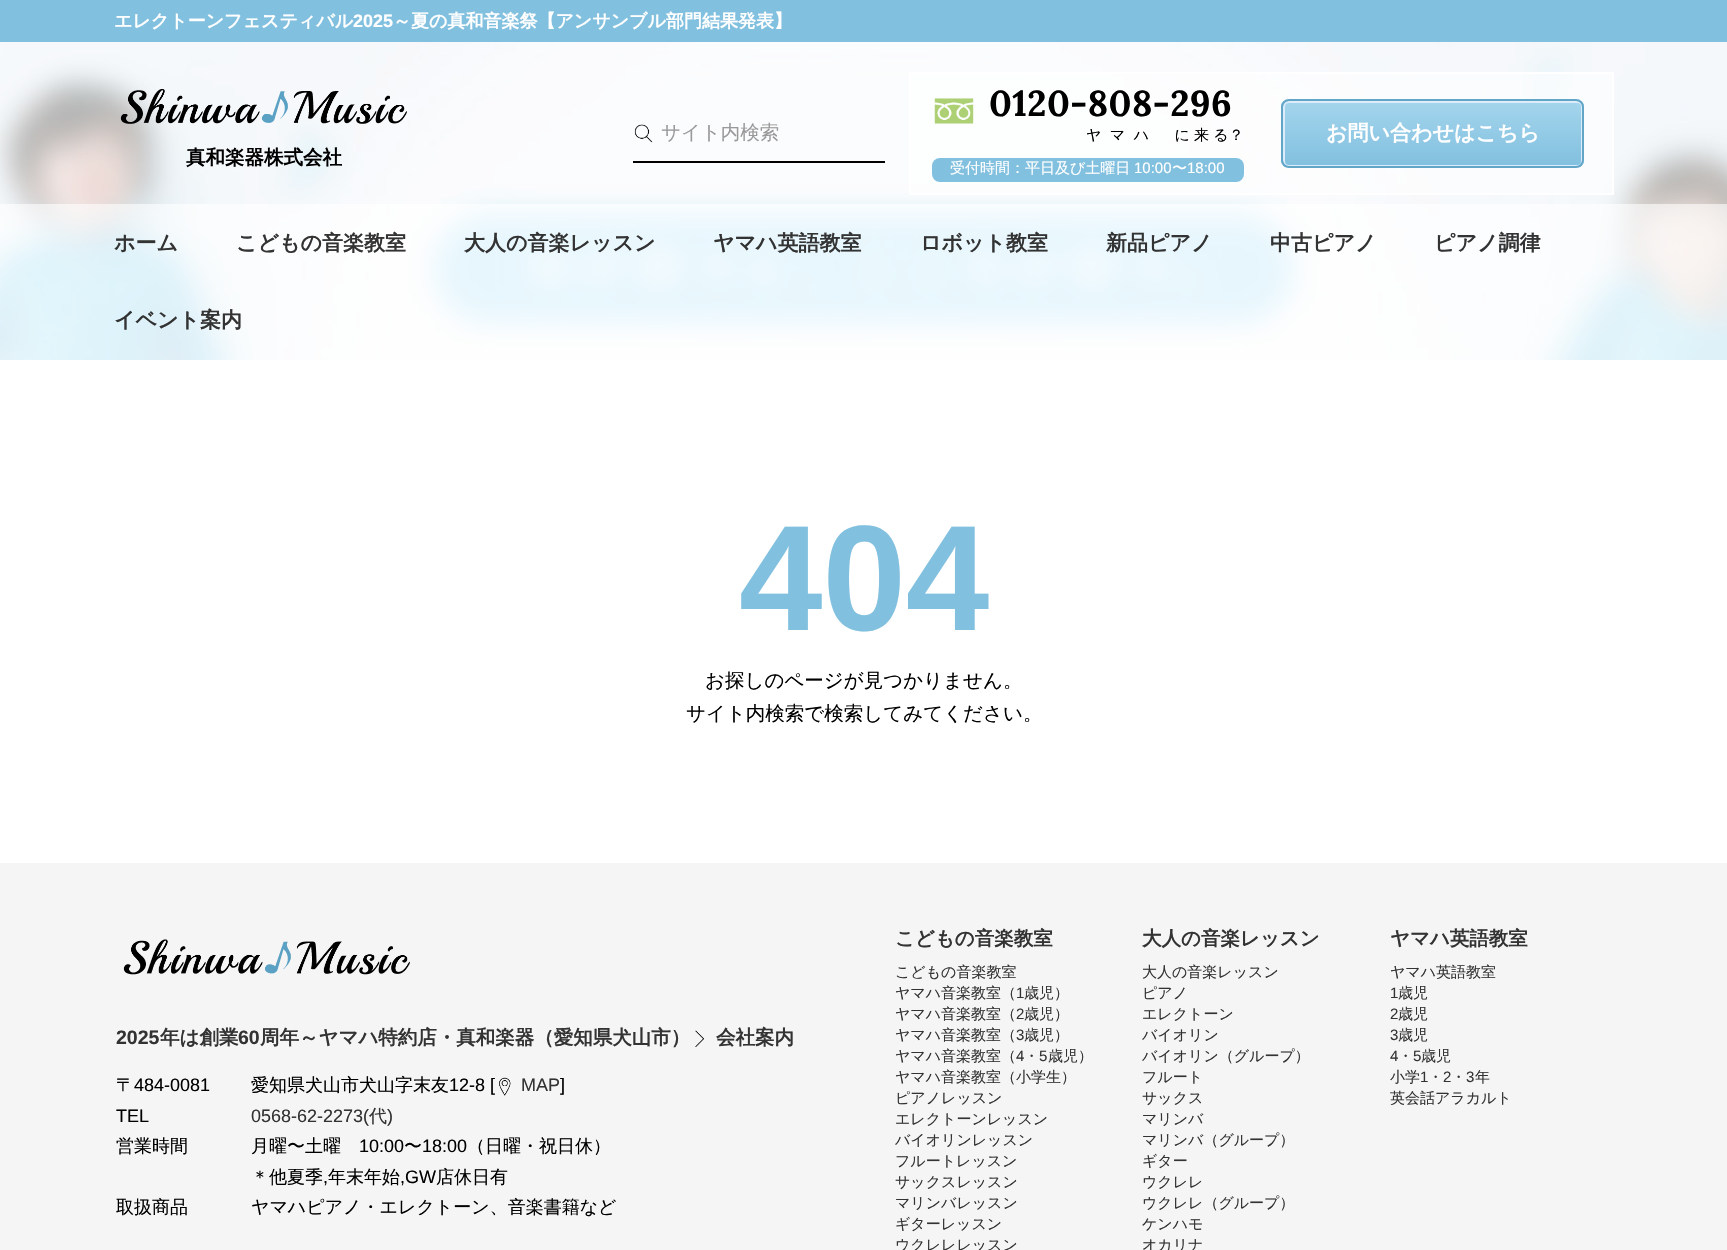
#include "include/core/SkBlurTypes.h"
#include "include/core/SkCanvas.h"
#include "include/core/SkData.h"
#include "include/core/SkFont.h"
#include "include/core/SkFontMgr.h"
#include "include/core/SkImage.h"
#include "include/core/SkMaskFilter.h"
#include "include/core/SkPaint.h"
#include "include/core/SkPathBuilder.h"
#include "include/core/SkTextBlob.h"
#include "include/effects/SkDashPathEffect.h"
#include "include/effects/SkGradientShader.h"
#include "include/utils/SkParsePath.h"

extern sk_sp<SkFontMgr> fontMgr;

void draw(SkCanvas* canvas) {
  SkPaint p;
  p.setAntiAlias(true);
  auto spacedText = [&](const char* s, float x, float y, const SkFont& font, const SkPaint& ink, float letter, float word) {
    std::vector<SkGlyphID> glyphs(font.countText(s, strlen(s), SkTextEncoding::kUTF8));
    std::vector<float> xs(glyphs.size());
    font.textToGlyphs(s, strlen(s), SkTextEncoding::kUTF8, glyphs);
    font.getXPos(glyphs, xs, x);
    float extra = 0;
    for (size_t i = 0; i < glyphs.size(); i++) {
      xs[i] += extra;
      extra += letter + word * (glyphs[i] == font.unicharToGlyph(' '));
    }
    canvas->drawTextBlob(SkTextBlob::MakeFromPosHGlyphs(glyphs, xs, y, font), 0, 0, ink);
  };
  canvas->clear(SK_ColorWHITE);
  p.setColor(SkColorSetRGB(129, 192, 223));
  canvas->drawRect(SkRect::MakeLTRB(0, 0, 1727, 42), p);
  canvas->drawImageRect(SkImages::DeferredFromEncodedData(SkData::MakeFromFileName("images/4.png")), SkRect::MakeLTRB(0, 42, 1727, 360), SkSamplingOptions());
  canvas->drawImageRect(SkImages::DeferredFromEncodedData(SkData::MakeFromFileName("images/1.png")), SkRect::MakeLTRB(120, 89, 407, 124), SkSamplingOptions());
  canvas->drawImageRect(SkImages::DeferredFromEncodedData(SkData::MakeFromFileName("images/2.png")), SkRect::MakeLTRB(634, 124, 653, 143), SkSamplingOptions());
  p.setColor(SK_ColorBLACK);
  canvas->drawRect(SkRect::MakeLTRB(633, 161, 885, 163), p);
  p.setColor(SkColorSetARGB(145, 255, 255, 255));
  canvas->drawRect(SkRect::MakeLTRB(910, 73, 1613, 194), p);
  p.setStyle(SkPaint::kStroke_Style);
  p.setStrokeWidth(2);
  p.setColor(SK_ColorWHITE);
  canvas->drawRect(SkRect::MakeLTRB(910, 73, 1613, 194), p);
  canvas->drawImageRect(SkImages::DeferredFromEncodedData(SkData::MakeFromFileName("images/3.png")), SkRect::MakeLTRB(934, 98, 974, 124), SkSamplingOptions());
  p.setStyle(SkPaint::kFill_Style);
  p.setColor(SkColorSetRGB(129, 192, 223));
  canvas->drawRoundRect(SkRect::MakeLTRB(932, 158, 1244, 182), 8, 8, p);
  canvas->save();
  canvas->clipPath(SkPathBuilder().moveTo(1289, 99).lineTo(1576, 99).cubicTo(1580.5f, 99, 1584, 102.5f, 1584, 107).lineTo(1584, 160).cubicTo(1584, 164.5f, 1580.5f, 168, 1576, 168).lineTo(1289, 168).cubicTo(1284.5f, 168, 1281, 164.5f, 1281, 160).lineTo(1281, 107).cubicTo(1281, 102.5f, 1284.5f, 99, 1289, 99).close().detach(), true);
  {
    const SkColor colors[] = {SkColorSetRGB(163, 212, 236), SkColorSetRGB(129, 192, 223)};
    const float stops[] = {0.05f, 1};
    const SkPoint ends[] = {{1433, 100}, {1433, 167}};
    p.setShader(SkGradientShader::MakeLinear(ends, colors, stops, 2, SkTileMode::kClamp));
    p.setAlpha(255);
  }
  canvas->drawRect(SkRect::MakeLTRB(1281, 101, 1584, 167), p);
  canvas->restore();
  p.setStyle(SkPaint::kStroke_Style);
  p.setShader(nullptr);
  p.setColor(SkColorSetRGB(220, 236, 251));
  canvas->drawRoundRect(SkRect::MakeLTRB(1284, 102, 1582, 166), 5, 5, p);
  p.setColor(SkColorSetRGB(97, 165, 199));
  canvas->drawRoundRect(SkRect::MakeLTRB(1282, 100, 1583, 167), 7, 7, p);
  p.setStyle(SkPaint::kFill_Style);
  p.setColor(SkColorSetARGB(153, 255, 255, 255));
  canvas->drawRect(SkRect::MakeLTRB(0, 204, 1727, 360), p);
  p.setColor(SkColorSetRGB(245, 245, 245));
  canvas->drawRect(SkRect::MakeLTRB(0, 863, 1727, 1250), p);
  canvas->drawImageRect(SkImages::DeferredFromEncodedData(SkData::MakeFromFileName("images/5.png")), SkRect::MakeLTRB(123, 939, 410, 975), SkSamplingOptions());
  canvas->drawImageRect(SkImages::DeferredFromEncodedData(SkData::MakeFromFileName("images/6.png")), SkRect::MakeLTRB(695, 1030, 704, 1047), SkSamplingOptions());
  canvas->drawImageRect(SkImages::DeferredFromEncodedData(SkData::MakeFromFileName("images/7.png")), SkRect::MakeLTRB(499, 1077, 511, 1096), SkSamplingOptions());
  SkFont font1(fontMgr->matchFamilyStyle("WenQuanYi Zen Hei", SkFontStyle::Bold()), 18);
  font1.setSubpixel(true);
  p.setColor(SK_ColorWHITE);
  canvas->drawString("エレクトーンフェスティバル", 114, 27, font1, p);
  SkFont font2(fontMgr->matchFamilyStyle("Liberation Sans", SkFontStyle::Bold()), 18);
  font2.setSubpixel(true);
  canvas->drawString("2025", 353, 27, font2, p);
  canvas->drawString("～夏の真和音楽祭【アンサンブル部門結果発表】", 393, 27, font1, p);
  SkFont font3(fontMgr->matchFamilyStyle("WenQuanYi Zen Hei", SkFontStyle::Bold()), 19.5f);
  font3.setSubpixel(true);
  p.setColor(SK_ColorBLACK);
  canvas->drawString("真和楽器株式会社", 186, 164, font3, p);
  SkFont font4(fontMgr->matchFamilyStyle("WenQuanYi Zen Hei", SkFontStyle(500, SkFontStyle::kNormal_Width, SkFontStyle::kUpright_Slant)), 19.5f);
  font4.setSubpixel(true);
  p.setColor(SkColorSetRGB(153, 153, 153));
  canvas->drawString("サイト内検索", 661, 139, font4, p);
  SkFont font5(fontMgr->matchFamilyStyle("Lora", SkFontStyle::Bold()), 36);
  font5.setSubpixel(true);
  p.setColor(SK_ColorBLACK);
  spacedText("0120-808-296", 989, 116, font5, p, 0.4f, 0);
  SkFont font6(fontMgr->matchFamilyStyle("WenQuanYi Zen Hei", SkFontStyle(500, SkFontStyle::kNormal_Width, SkFontStyle::kUpright_Slant)), 15);
  font6.setSubpixel(true);
  spacedText("ヤ  マ  ハ      に 来 る？", 1086, 140, font6, p, 0, -0.25f);
  p.setColor(SK_ColorWHITE);
  canvas->drawString("受付時間：平日及び土曜日", 950, 173, font6, p);
  SkFont font7(fontMgr->matchFamilyStyle("Liberation Sans", SkFontStyle::Normal()), 15);
  font7.setSubpixel(true);
  canvas->drawString("10:00", 1134, 173, font7, p);
  canvas->drawString("〜", 1172, 173, font6, p);
  canvas->drawString("18:00", 1187, 173, font7, p);
  SkFont font8(fontMgr->matchFamilyStyle("WenQuanYi Zen Hei", SkFontStyle::Bold()), 21);
  font8.setSubpixel(true);
  canvas->drawString("お問い合わせはこちら", 1326, 140, font8, p);
  p.setColor(SkColorSetRGB(51, 51, 51));
  canvas->drawString("ホーム", 114, 250, font8, p);
  canvas->drawString("こどもの音楽教室", 236, 250, font8, p);
  canvas->drawString("大人の音楽レッスン", 464, 250, font8, p);
  canvas->drawString("ヤマハ英語教室", 713, 250, font8, p);
  canvas->drawString("ロボット教室", 920, 250, font8, p);
  canvas->drawString("新品ピアノ", 1106, 250, font8, p);
  canvas->drawString("中古ピアノ", 1270, 250, font8, p);
  canvas->drawString("ピアノ調律", 1434, 250, font8, p);
  canvas->drawString("イベント案内", 114, 327, font8, p);
  SkFont font9(fontMgr->matchFamilyStyle("Liberation Sans", SkFontStyle::Bold()), 150);
  font9.setSubpixel(true);
  p.setColor(SkColorSetRGB(129, 192, 223));
  canvas->drawString("404", 739, 630, font9, p);
  p.setColor(SK_ColorBLACK);
  canvas->drawString("お探しのページが見つかりません。", 705, 687, font4, p);
  canvas->drawString("サイト内検索で検索してみてください。", 686, 720, font4, p);
  SkFont font10(fontMgr->matchFamilyStyle("Liberation Sans", SkFontStyle::Bold()), 19.5f);
  font10.setSubpixel(true);
  p.setColor(SkColorSetRGB(51, 51, 51));
  canvas->drawString("2025", 116, 1044, font10, p);
  canvas->drawString("年は創業", 160, 1044, font3, p);
  canvas->drawString("60", 238, 1044, font10, p);
  canvas->drawString("周年～ヤマハ特約店・真和楽器（愛知県犬山市）", 260, 1044, font3, p);
  canvas->drawString("会社案内", 716, 1044, font3, p);
  SkFont font11(fontMgr->matchFamilyStyle("WenQuanYi Zen Hei", SkFontStyle(500, SkFontStyle::kNormal_Width, SkFontStyle::kUpright_Slant)), 18);
  font11.setSubpixel(true);
  p.setColor(SK_ColorBLACK);
  canvas->drawString("〒", 116, 1091, font11, p);
  SkFont font12(fontMgr->matchFamilyStyle("Liberation Sans", SkFontStyle::Normal()), 18);
  font12.setSubpixel(true);
  canvas->drawString("484-0081", 134, 1091, font12, p);
  canvas->drawString("愛知県犬山市犬山字末友", 251, 1091, font11, p);
  canvas->drawString("12-8 [", 449, 1091, font12, p);
  p.setColor(SkColorSetRGB(51, 51, 51));
  canvas->drawString("MAP", 521, 1091, font12, p);
  p.setColor(SK_ColorBLACK);
  canvas->drawString("]", 560, 1091, font12, p);
  canvas->drawString("TEL", 116, 1122, font12, p);
  p.setColor(SkColorSetRGB(51, 51, 51));
  canvas->drawString("0568-62-2273(", 251, 1122, font12, p);
  canvas->drawString("代", 369, 1122, font11, p);
  canvas->drawString(")", 387, 1122, font12, p);
  p.setColor(SK_ColorBLACK);
  canvas->drawString("営業時間", 116, 1152, font11, p);
  canvas->drawString("月曜〜土曜", 251, 1152, font11, p);
  canvas->drawString("10:00", 359, 1152, font12, p);
  canvas->drawString("〜", 404, 1152, font11, p);
  canvas->drawString("18:00", 422, 1152, font12, p);
  canvas->drawString("（日曜・祝日休）", 467, 1152, font11, p);
  canvas->drawString("＊他夏季", 251, 1183, font11, p);
  canvas->drawString(",", 323, 1183, font12, p);
  canvas->drawString("年末年始", 328, 1183, font11, p);
  canvas->drawString(",GW", 400, 1183, font12, p);
  canvas->drawString("店休日有", 436, 1183, font11, p);
  canvas->drawString("取扱商品", 116, 1213, font11, p);
  canvas->drawString("ヤマハピアノ・エレクトーン、音楽書籍など", 251, 1213, font11, p);
  p.setColor(SkColorSetRGB(51, 51, 51));
  canvas->drawString("こどもの音楽教室", 895, 945, font3, p);
  canvas->drawString("こどもの音楽教室", 895, 977, font6, p);
  canvas->drawString("ヤマハ音楽教室（", 895, 998, font6, p);
  canvas->drawString("1", 1016, 998, font7, p);
  canvas->drawString("歳児）", 1024, 998, font6, p);
  canvas->drawString("ヤマハ音楽教室（", 895, 1019, font6, p);
  canvas->drawString("2", 1016, 1019, font7, p);
  canvas->drawString("歳児）", 1024, 1019, font6, p);
  canvas->drawString("ヤマハ音楽教室（", 895, 1040, font6, p);
  canvas->drawString("3", 1016, 1040, font7, p);
  canvas->drawString("歳児）", 1024, 1040, font6, p);
  canvas->drawString("ヤマハ音楽教室（", 895, 1061, font6, p);
  canvas->drawString("4", 1016, 1061, font7, p);
  canvas->drawString("・", 1024, 1061, font6, p);
  canvas->drawString("5", 1039, 1061, font7, p);
  canvas->drawString("歳児）", 1048, 1061, font6, p);
  canvas->drawString("ヤマハ音楽教室（小学生）", 895, 1082, font6, p);
  canvas->drawString("ピアノレッスン", 895, 1103, font6, p);
  canvas->drawString("エレクトーンレッスン", 895, 1124, font6, p);
  canvas->drawString("バイオリンレッスン", 895, 1145, font6, p);
  canvas->drawString("フルートレッスン", 895, 1166, font6, p);
  canvas->drawString("サックスレッスン", 895, 1187, font6, p);
  canvas->drawString("マリンバレッスン", 895, 1208, font6, p);
  canvas->drawString("ギターレッスン", 895, 1229, font6, p);
  canvas->drawString("ウクレレレッスン", 895, 1250, font6, p);
  canvas->drawString("大人の音楽レッスン", 1142, 945, font3, p);
  canvas->drawString("大人の音楽レッスン", 1142, 977, font6, p);
  canvas->drawString("ピアノ", 1142, 998, font6, p);
  canvas->drawString("エレクトーン", 1142, 1019, font6, p);
  canvas->drawString("バイオリン", 1142, 1040, font6, p);
  canvas->drawString("バイオリン（グループ）", 1142, 1061, font6, p);
  canvas->drawString("フルート", 1142, 1082, font6, p);
  canvas->drawString("サックス", 1142, 1103, font6, p);
  canvas->drawString("マリンバ", 1142, 1124, font6, p);
  canvas->drawString("マリンバ（グループ）", 1142, 1145, font6, p);
  canvas->drawString("ギター", 1142, 1166, font6, p);
  canvas->drawString("ウクレレ", 1142, 1187, font6, p);
  canvas->drawString("ウクレレ（グループ）", 1142, 1208, font6, p);
  canvas->drawString("ケンハモ", 1142, 1229, font6, p);
  canvas->drawString("オカリナ", 1142, 1250, font6, p);
  canvas->drawString("ヤマハ英語教室", 1390, 945, font3, p);
  canvas->drawString("ヤマハ英語教室", 1390, 977, font6, p);
  canvas->drawString("1", 1390, 998, font7, p);
  canvas->drawString("歳児", 1398, 998, font6, p);
  canvas->drawString("2", 1390, 1019, font7, p);
  canvas->drawString("歳児", 1398, 1019, font6, p);
  canvas->drawString("3", 1390, 1040, font7, p);
  canvas->drawString("歳児", 1398, 1040, font6, p);
  canvas->drawString("4", 1390, 1061, font7, p);
  canvas->drawString("・", 1398, 1061, font6, p);
  canvas->drawString("5", 1413, 1061, font7, p);
  canvas->drawString("歳児", 1421, 1061, font6, p);
  canvas->drawString("小学", 1390, 1082, font6, p);
  canvas->drawString("1", 1420, 1082, font7, p);
  canvas->drawString("・", 1428, 1082, font6, p);
  canvas->drawString("2", 1443, 1082, font7, p);
  canvas->drawString("・", 1451, 1082, font6, p);
  canvas->drawString("3", 1466, 1082, font7, p);
  canvas->drawString("年", 1475, 1082, font6, p);
  canvas->drawString("英会話アラカルト", 1390, 1103, font6, p);
}
